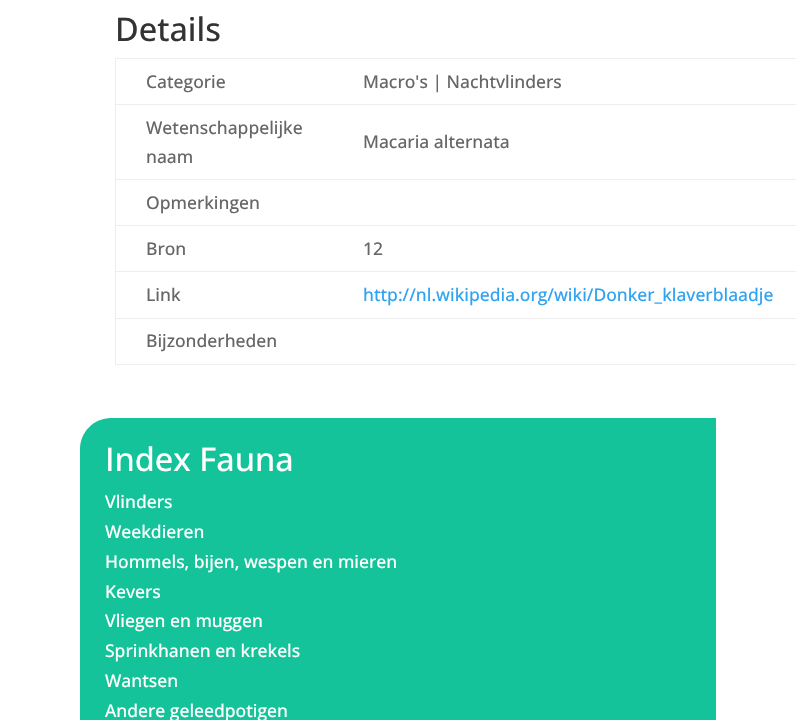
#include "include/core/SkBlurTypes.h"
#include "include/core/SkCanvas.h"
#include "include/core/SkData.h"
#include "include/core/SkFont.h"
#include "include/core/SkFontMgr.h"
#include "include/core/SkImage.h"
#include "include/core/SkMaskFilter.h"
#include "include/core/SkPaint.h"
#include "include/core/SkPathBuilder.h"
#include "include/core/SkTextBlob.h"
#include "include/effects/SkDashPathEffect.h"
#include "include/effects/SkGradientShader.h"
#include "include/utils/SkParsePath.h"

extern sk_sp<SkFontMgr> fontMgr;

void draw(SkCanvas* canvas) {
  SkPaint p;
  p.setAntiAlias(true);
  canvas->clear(SK_ColorWHITE);
  p.setColor(SkColorSetRGB(238, 238, 238));
  canvas->drawRect(SkRect::MakeLTRB(115, 58, 796, 59), p);
  canvas->drawRect(SkRect::MakeLTRB(115, 364, 796, 365), p);
  canvas->drawRect(SkRect::MakeLTRB(115, 58, 116, 365), p);
  canvas->drawRect(SkRect::MakeLTRB(115, 104, 796, 105), p);
  canvas->drawRect(SkRect::MakeLTRB(115, 179, 796, 180), p);
  canvas->drawRect(SkRect::MakeLTRB(115, 225, 796, 226), p);
  canvas->drawRect(SkRect::MakeLTRB(115, 271, 796, 272), p);
  canvas->drawRect(SkRect::MakeLTRB(115, 318, 796, 319), p);
  p.setColor(SkColorSetRGB(21, 195, 154));
  canvas->drawPath(SkPathBuilder().moveTo(111, 418).lineTo(716, 418).lineTo(716, 720).cubicTo(716, 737, 702, 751, 685, 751).lineTo(80, 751).lineTo(80, 449).cubicTo(80, 432, 94, 418, 111, 418).close().detach(), p);
  SkFont font1(fontMgr->matchFamilyStyle("Open Sans", SkFontStyle(500, SkFontStyle::kNormal_Width, SkFontStyle::kUpright_Slant)), 32.5f);
  font1.setSubpixel(true);
  p.setColor(SkColorSetRGB(51, 51, 51));
  canvas->drawString("Details", 115, 41, font1, p);
  SkFont font2(fontMgr->matchFamilyStyle("Open Sans", SkFontStyle(500, SkFontStyle::kNormal_Width, SkFontStyle::kUpright_Slant)), 17.5f);
  font2.setSubpixel(true);
  p.setColor(SkColorSetRGB(102, 102, 102));
  canvas->drawString("Categorie", 146, 88, font2, p);
  canvas->drawString("Macro's | Nachtvlinders", 363, 88, font2, p);
  canvas->drawString("Wetenschappelijke", 146, 134, font2, p);
  canvas->drawString("naam", 146, 163, font2, p);
  canvas->drawString("Macaria alternata", 363, 148, font2, p);
  canvas->drawString("Opmerkingen", 146, 209, font2, p);
  canvas->drawString("Bron", 146, 255, font2, p);
  canvas->drawString("12", 363, 255, font2, p);
  canvas->drawString("Link", 146, 301, font2, p);
  p.setColor(SkColorSetRGB(46, 163, 242));
  canvas->drawString("http://nl.wikipedia.org/wiki/Donker_klaverblaadje", 363, 301, font2, p);
  p.setColor(SkColorSetRGB(102, 102, 102));
  canvas->drawString("Bijzonderheden", 146, 347, font2, p);
  p.setColor(SK_ColorWHITE);
  canvas->drawString("Index Fauna", 105, 471, font1, p);
  canvas->drawString("Vlinders", 105, 508, font2, p);
  canvas->drawString("Weekdieren", 105, 538, font2, p);
  canvas->drawString("Hommels, bijen, wespen en mieren", 105, 568, font2, p);
  canvas->drawString("Kevers", 105, 598, font2, p);
  canvas->drawString("Vliegen en muggen", 105, 627, font2, p);
  canvas->drawString("Sprinkhanen en krekels", 105, 657, font2, p);
  canvas->drawString("Wantsen", 105, 687, font2, p);
  canvas->drawString("Andere geleedpotigen", 105, 717, font2, p);
}
